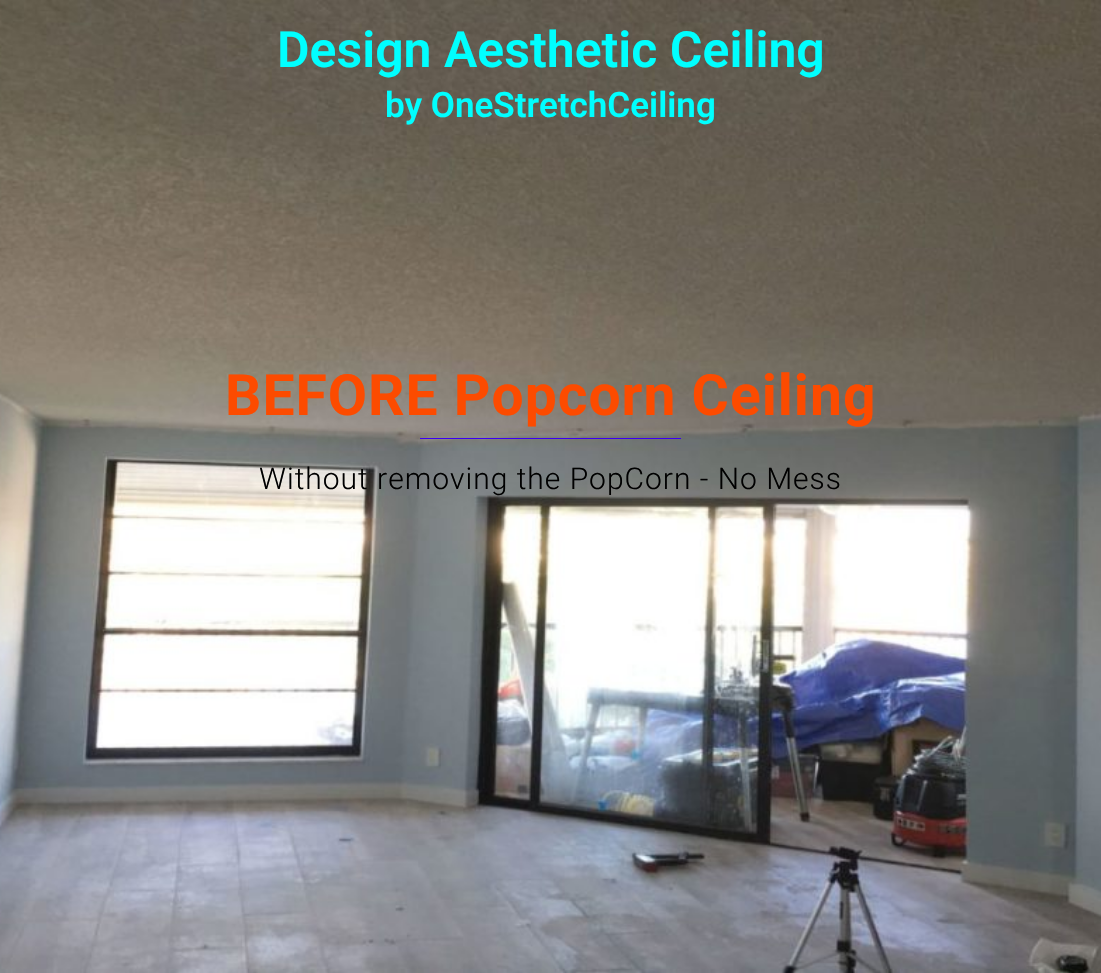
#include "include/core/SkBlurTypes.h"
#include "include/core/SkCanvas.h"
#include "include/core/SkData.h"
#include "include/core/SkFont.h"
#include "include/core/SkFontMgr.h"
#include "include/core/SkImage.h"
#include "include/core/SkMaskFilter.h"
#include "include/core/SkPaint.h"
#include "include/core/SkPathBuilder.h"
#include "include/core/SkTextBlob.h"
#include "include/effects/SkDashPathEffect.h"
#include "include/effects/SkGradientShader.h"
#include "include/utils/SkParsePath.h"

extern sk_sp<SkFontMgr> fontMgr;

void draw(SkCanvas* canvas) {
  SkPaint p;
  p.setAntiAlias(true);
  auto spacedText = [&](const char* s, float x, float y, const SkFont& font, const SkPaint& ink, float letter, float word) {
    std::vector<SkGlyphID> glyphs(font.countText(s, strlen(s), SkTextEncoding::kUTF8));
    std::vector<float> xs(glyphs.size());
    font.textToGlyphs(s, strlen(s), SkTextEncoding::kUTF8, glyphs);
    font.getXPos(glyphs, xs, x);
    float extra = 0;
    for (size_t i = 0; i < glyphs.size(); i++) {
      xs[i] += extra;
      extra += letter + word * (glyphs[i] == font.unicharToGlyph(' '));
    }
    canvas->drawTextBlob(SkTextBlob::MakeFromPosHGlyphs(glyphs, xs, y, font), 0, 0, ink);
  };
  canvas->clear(SK_ColorWHITE);
  canvas->drawImageRect(SkImages::DeferredFromEncodedData(SkData::MakeFromFileName("images/1.png")), SkRect::MakeLTRB(0, 0, 1101, 973), SkSamplingOptions());
  p.setColor(SkColorSetRGB(60, 0, 242));
  canvas->drawRect(SkRect::MakeLTRB(420, 438, 681, 439), p);
  SkFont font1(fontMgr->matchFamilyStyle("Roboto", SkFontStyle(600, SkFontStyle::kNormal_Width, SkFontStyle::kUpright_Slant)), 50);
  font1.setSubpixel(true);
  p.setColor(SkColorSetRGB(0, 255, 255));
  canvas->drawString("Design Aesthetic Ceiling", 277, 67, font1, p);
  SkFont font2(fontMgr->matchFamilyStyle("Roboto", SkFontStyle(600, SkFontStyle::kNormal_Width, SkFontStyle::kUpright_Slant)), 35);
  font2.setSubpixel(true);
  canvas->drawString("by OneStretchCeiling", 385, 117, font2, p);
  SkFont font3(fontMgr->matchFamilyStyle("Roboto", SkFontStyle::Bold()), 57);
  font3.setSubpixel(true);
  p.setColor(SkColorSetRGB(252, 75, 0));
  spacedText("BEFORE Popcorn Ceiling", 225, 415, font3, p, 1, 0);
  SkFont font4(fontMgr->matchFamilyStyle("Roboto", SkFontStyle(300, SkFontStyle::kNormal_Width, SkFontStyle::kUpright_Slant)), 30);
  font4.setSubpixel(true);
  p.setColor(SK_ColorBLACK);
  spacedText("Without removing the PopCorn - No Mess", 259, 489, font4, p, 1, 0);
}
